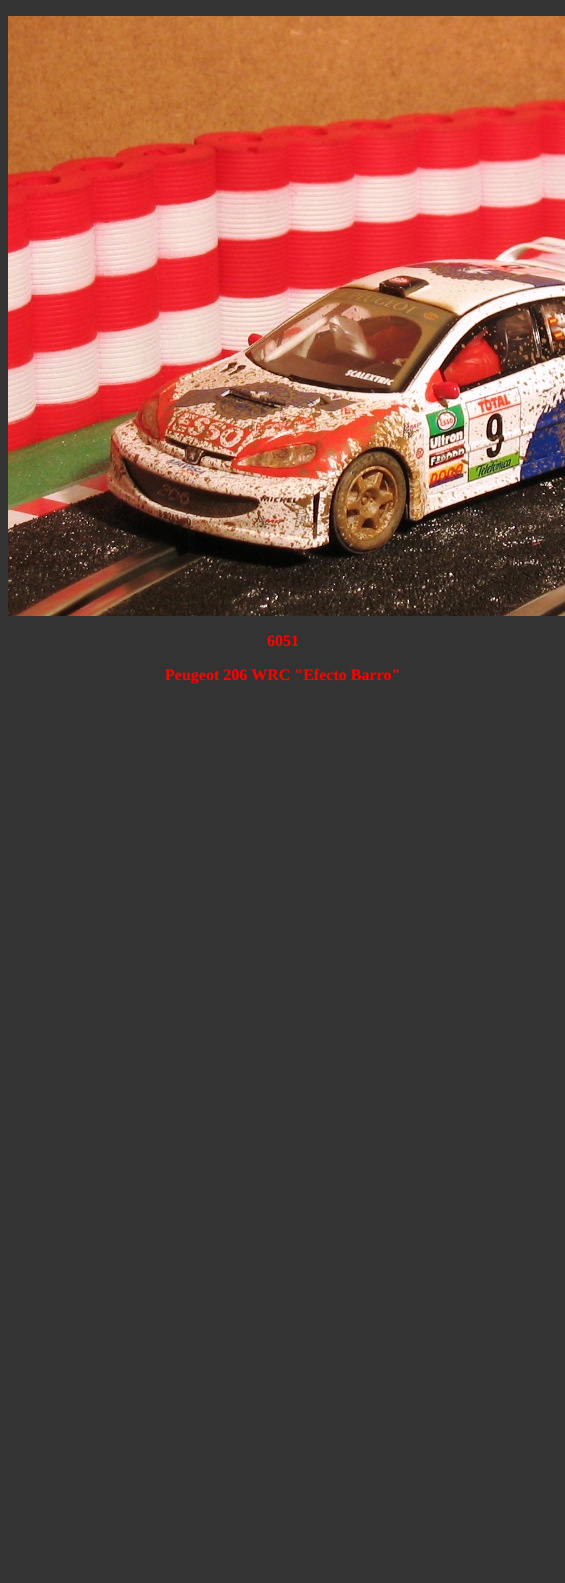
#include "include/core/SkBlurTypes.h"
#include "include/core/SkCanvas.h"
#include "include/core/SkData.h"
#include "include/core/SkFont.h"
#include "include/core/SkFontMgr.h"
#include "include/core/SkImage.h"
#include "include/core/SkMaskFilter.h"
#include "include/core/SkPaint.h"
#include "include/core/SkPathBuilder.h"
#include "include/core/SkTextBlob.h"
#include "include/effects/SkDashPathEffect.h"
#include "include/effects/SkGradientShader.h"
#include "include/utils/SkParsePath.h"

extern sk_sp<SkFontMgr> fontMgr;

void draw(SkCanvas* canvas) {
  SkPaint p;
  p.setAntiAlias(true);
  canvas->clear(SkColorSetRGB(51, 51, 51));
  canvas->drawImageRect(SkImages::DeferredFromEncodedData(SkData::MakeFromFileName("images/1.png")), SkRect::MakeLTRB(8, 16, 565, 616), SkSamplingOptions());
  SkFont font1(fontMgr->matchFamilyStyle("Liberation Serif", SkFontStyle::Bold()), 16);
  font1.setSubpixel(true);
  p.setColor(SkColorSetRGB(255, 0, 0));
  canvas->drawString("6051", 267, 646, font1, p);
  canvas->drawString("Peugeot 206 WRC \"Efecto Barro\"", 165, 680, font1, p);
}
